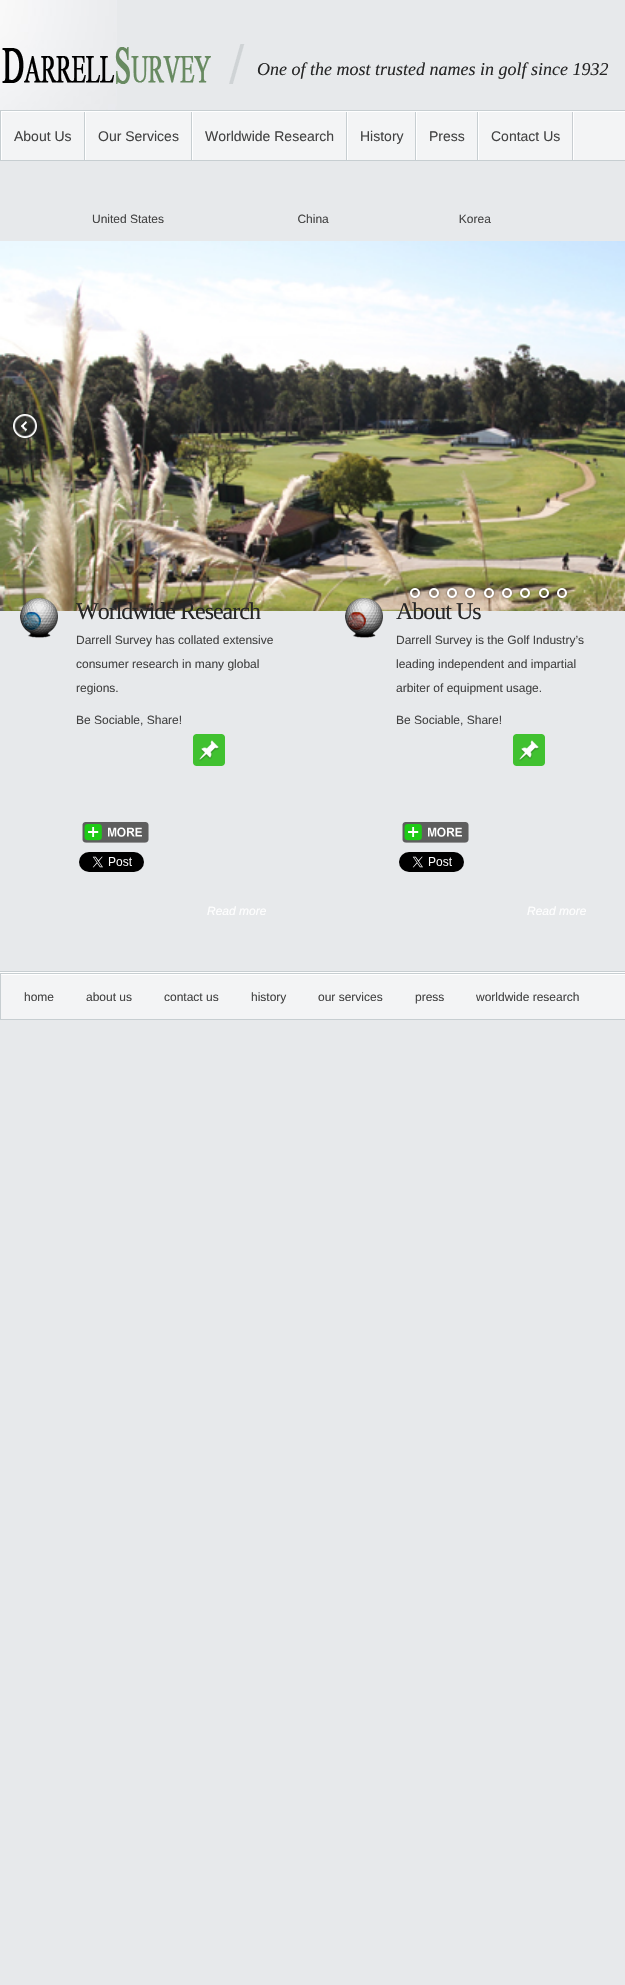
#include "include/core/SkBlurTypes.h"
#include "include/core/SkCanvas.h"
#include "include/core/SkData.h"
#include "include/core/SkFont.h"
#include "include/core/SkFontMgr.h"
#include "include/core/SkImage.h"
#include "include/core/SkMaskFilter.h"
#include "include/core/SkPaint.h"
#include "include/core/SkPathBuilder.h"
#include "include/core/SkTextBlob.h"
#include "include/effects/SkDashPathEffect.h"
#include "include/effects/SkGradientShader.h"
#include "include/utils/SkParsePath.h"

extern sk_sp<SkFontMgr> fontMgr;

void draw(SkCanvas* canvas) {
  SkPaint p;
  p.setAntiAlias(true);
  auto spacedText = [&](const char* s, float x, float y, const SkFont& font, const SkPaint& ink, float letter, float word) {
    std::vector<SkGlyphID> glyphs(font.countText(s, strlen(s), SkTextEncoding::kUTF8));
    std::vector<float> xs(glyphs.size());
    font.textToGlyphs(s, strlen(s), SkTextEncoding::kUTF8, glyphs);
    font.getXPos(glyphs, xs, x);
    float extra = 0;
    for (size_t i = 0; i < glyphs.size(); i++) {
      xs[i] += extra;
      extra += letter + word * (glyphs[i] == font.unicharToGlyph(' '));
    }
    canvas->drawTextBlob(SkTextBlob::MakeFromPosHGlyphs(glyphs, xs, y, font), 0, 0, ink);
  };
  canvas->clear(SkColorSetRGB(231, 233, 235));
  canvas->drawImageRect(SkImages::DeferredFromEncodedData(SkData::MakeFromFileName("images/1.png")), SkRect::MakeLTRB(0, 0, 117, 110), SkSamplingOptions());
  canvas->drawImageRect(SkImages::DeferredFromEncodedData(SkData::MakeFromFileName("images/2.png")), SkRect::MakeLTRB(2, 47, 211, 84), SkSamplingOptions());
  canvas->drawImageRect(SkImages::DeferredFromEncodedData(SkData::MakeFromFileName("images/3.png")), SkRect::MakeLTRB(229, 44, 245, 84), SkSamplingOptions());
  p.setColor(SkColorSetRGB(243, 244, 245));
  canvas->drawRect(SkRect::MakeLTRB(2, 112, 625, 160), p);
  p.setColor(SK_ColorWHITE);
  canvas->drawRect(SkRect::MakeLTRB(0, 111, 625, 112), p);
  p.setStyle(SkPaint::kStroke_Style);
  p.setStrokeWidth(1);
  p.setColor(SkColorSetRGB(199, 206, 209));
  canvas->drawRect(SkRect::MakeLTRB(0.5f, 110.5f, 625.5f, 160.5f), p);
  p.setStyle(SkPaint::kFill_Style);
  canvas->drawRect(SkRect::MakeLTRB(84, 112, 85, 160), p);
  p.setColor(SK_ColorWHITE);
  canvas->drawRect(SkRect::MakeLTRB(1, 112, 2, 160), p);
  p.setColor(SkColorSetRGB(199, 206, 209));
  canvas->drawRect(SkRect::MakeLTRB(191, 112, 192, 160), p);
  p.setColor(SK_ColorWHITE);
  canvas->drawRect(SkRect::MakeLTRB(85, 112, 86, 160), p);
  p.setColor(SkColorSetRGB(199, 206, 209));
  canvas->drawRect(SkRect::MakeLTRB(346, 112, 347, 160), p);
  p.setColor(SK_ColorWHITE);
  canvas->drawRect(SkRect::MakeLTRB(192, 112, 193, 160), p);
  p.setColor(SkColorSetRGB(199, 206, 209));
  canvas->drawRect(SkRect::MakeLTRB(415, 112, 416, 160), p);
  p.setColor(SK_ColorWHITE);
  canvas->drawRect(SkRect::MakeLTRB(347, 112, 348, 160), p);
  p.setColor(SkColorSetRGB(199, 206, 209));
  canvas->drawRect(SkRect::MakeLTRB(477, 112, 478, 160), p);
  p.setColor(SK_ColorWHITE);
  canvas->drawRect(SkRect::MakeLTRB(416, 112, 417, 160), p);
  canvas->drawImageRect(SkImages::DeferredFromEncodedData(SkData::MakeFromFileName("images/4.png")), SkRect::MakeLTRB(572, 112, 574, 160), SkSamplingOptions());
  canvas->drawRect(SkRect::MakeLTRB(478, 112, 479, 160), p);
  canvas->drawImageRect(SkImages::DeferredFromEncodedData(SkData::MakeFromFileName("images/5.png")), SkRect::MakeLTRB(0, 241, 625, 611), SkSamplingOptions());
  canvas->drawImageRect(SkImages::DeferredFromEncodedData(SkData::MakeFromFileName("images/6.png")), SkRect::MakeLTRB(12, 413, 38, 440), SkSamplingOptions());
  canvas->drawImageRect(SkImages::DeferredFromEncodedData(SkData::MakeFromFileName("images/7.png")), SkRect::MakeLTRB(408, 586, 422, 600), SkSamplingOptions());
  canvas->drawImageRect(SkImages::DeferredFromEncodedData(SkData::MakeFromFileName("images/8.png")), SkRect::MakeLTRB(427, 587, 441, 600), SkSamplingOptions());
  canvas->drawImageRect(SkImages::DeferredFromEncodedData(SkData::MakeFromFileName("images/9.png")), SkRect::MakeLTRB(445, 586, 459, 600), SkSamplingOptions());
  canvas->drawImageRect(SkImages::DeferredFromEncodedData(SkData::MakeFromFileName("images/10.png")), SkRect::MakeLTRB(463, 586, 477, 600), SkSamplingOptions());
  canvas->drawImageRect(SkImages::DeferredFromEncodedData(SkData::MakeFromFileName("images/11.png")), SkRect::MakeLTRB(482, 586, 496, 600), SkSamplingOptions());
  canvas->drawImageRect(SkImages::DeferredFromEncodedData(SkData::MakeFromFileName("images/12.png")), SkRect::MakeLTRB(500, 586, 514, 600), SkSamplingOptions());
  canvas->drawImageRect(SkImages::DeferredFromEncodedData(SkData::MakeFromFileName("images/13.png")), SkRect::MakeLTRB(518, 587, 532, 600), SkSamplingOptions());
  canvas->drawImageRect(SkImages::DeferredFromEncodedData(SkData::MakeFromFileName("images/14.png")), SkRect::MakeLTRB(537, 586, 551, 600), SkSamplingOptions());
  canvas->drawImageRect(SkImages::DeferredFromEncodedData(SkData::MakeFromFileName("images/15.png")), SkRect::MakeLTRB(556, 586, 569, 600), SkSamplingOptions());
  canvas->drawImageRect(SkImages::DeferredFromEncodedData(SkData::MakeFromFileName("images/16.png")), SkRect::MakeLTRB(0, 971, 625, 973), SkSamplingOptions());
  canvas->drawImageRect(SkImages::DeferredFromEncodedData(SkData::MakeFromFileName("images/17.png")), SkRect::MakeLTRB(20, 598, 58, 638), SkSamplingOptions());
  canvas->drawImageRect(SkImages::DeferredFromEncodedData(SkData::MakeFromFileName("images/18.png")), SkRect::MakeLTRB(193, 734, 225, 766), SkSamplingOptions());
  canvas->drawImageRect(SkImages::DeferredFromEncodedData(SkData::MakeFromFileName("images/19.png")), SkRect::MakeLTRB(82, 822, 149, 843), SkSamplingOptions());
  canvas->drawImageRect(SkImages::DeferredFromEncodedData(SkData::MakeFromFileName("images/20.png")), SkRect::MakeLTRB(79, 852, 144, 872), SkSamplingOptions());
  canvas->drawImageRect(SkImages::DeferredFromEncodedData(SkData::MakeFromFileName("images/21.png")), SkRect::MakeLTRB(345, 598, 383, 638), SkSamplingOptions());
  canvas->drawImageRect(SkImages::DeferredFromEncodedData(SkData::MakeFromFileName("images/18.png")), SkRect::MakeLTRB(513, 734, 545, 766), SkSamplingOptions());
  canvas->drawImageRect(SkImages::DeferredFromEncodedData(SkData::MakeFromFileName("images/19.png")), SkRect::MakeLTRB(402, 822, 469, 843), SkSamplingOptions());
  canvas->drawImageRect(SkImages::DeferredFromEncodedData(SkData::MakeFromFileName("images/22.png")), SkRect::MakeLTRB(399, 852, 464, 872), SkSamplingOptions());
  p.setColor(SkColorSetRGB(243, 244, 245));
  canvas->drawRect(SkRect::MakeLTRB(1, 975, 625, 1019), p);
  p.setStyle(SkPaint::kStroke_Style);
  p.setColor(SkColorSetRGB(199, 206, 209));
  canvas->drawRect(SkRect::MakeLTRB(0.5f, 973.5f, 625.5f, 1019.5f), p);
  p.setStyle(SkPaint::kFill_Style);
  p.setColor(SK_ColorWHITE);
  canvas->drawRect(SkRect::MakeLTRB(1, 974, 625, 975), p);
  SkFont font1(fontMgr->matchFamilyStyle("Liberation Serif", SkFontStyle::Italic()), 18);
  font1.setSubpixel(true);
  p.setColor(SkColorSetRGB(38, 38, 38));
  canvas->drawString("One of the most trusted names in golf since 1932", 257, 75, font1, p);
  SkFont font2(fontMgr->matchFamilyStyle("Liberation Sans", SkFontStyle::Normal()), 14);
  font2.setSubpixel(true);
  p.setColor(SkColorSetRGB(67, 67, 67));
  canvas->drawString("About Us", 14, 141, font2, p);
  canvas->drawString("Our Services", 98, 141, font2, p);
  canvas->drawString("Worldwide Research", 205, 141, font2, p);
  canvas->drawString("History", 360, 141, font2, p);
  canvas->drawString("Press", 429, 141, font2, p);
  canvas->drawString("Contact Us", 491, 141, font2, p);
  SkFont font3(fontMgr->matchFamilyStyle("Liberation Sans", SkFontStyle::Normal()), 12);
  font3.setSubpixel(true);
  canvas->drawString("United States                                        China                                       Korea", 92, 223, font3, p);
  SkFont font4(fontMgr->matchFamilyStyle("Liberation Serif", SkFontStyle::Normal()), 24);
  font4.setSubpixel(true);
  p.setColor(SkColorSetRGB(38, 38, 38));
  spacedText("Worldwide Research", 76, 619, font4, p, -1, 0);
  p.setColor(SkColorSetRGB(67, 67, 67));
  canvas->drawString("Darrell Survey has collated extensive", 76, 644, font3, p);
  canvas->drawString("consumer research in many global", 76, 668, font3, p);
  canvas->drawString("regions.", 76, 692, font3, p);
  canvas->drawString("Be Sociable, Share!", 76, 724, font3, p);
  SkFont font5(fontMgr->matchFamilyStyle("Liberation Sans", SkFontStyle::Italic()), 12);
  font5.setSubpixel(true);
  p.setColor(SK_ColorWHITE);
  canvas->drawString("Read more", 207, 915, font5, p);
  p.setColor(SkColorSetRGB(38, 38, 38));
  spacedText("About Us", 396, 619, font4, p, -1, 0);
  p.setColor(SkColorSetRGB(67, 67, 67));
  canvas->drawString("Darrell Survey is the Golf Industry’s", 396, 644, font3, p);
  canvas->drawString("leading independent and impartial", 396, 668, font3, p);
  canvas->drawString("arbiter of equipment usage.", 396, 692, font3, p);
  canvas->drawString("Be Sociable, Share!", 396, 724, font3, p);
  p.setColor(SK_ColorWHITE);
  canvas->drawString("Read more", 527, 915, font5, p);
  p.setColor(SkColorSetRGB(67, 67, 67));
  canvas->drawString("home", 24, 1001, font3, p);
  canvas->drawString("about us", 86, 1001, font3, p);
  canvas->drawString("contact us", 164, 1001, font3, p);
  canvas->drawString("history", 251, 1001, font3, p);
  canvas->drawString("our services", 318, 1001, font3, p);
  canvas->drawString("press", 415, 1001, font3, p);
  canvas->drawString("worldwide research", 476, 1001, font3, p);
}
